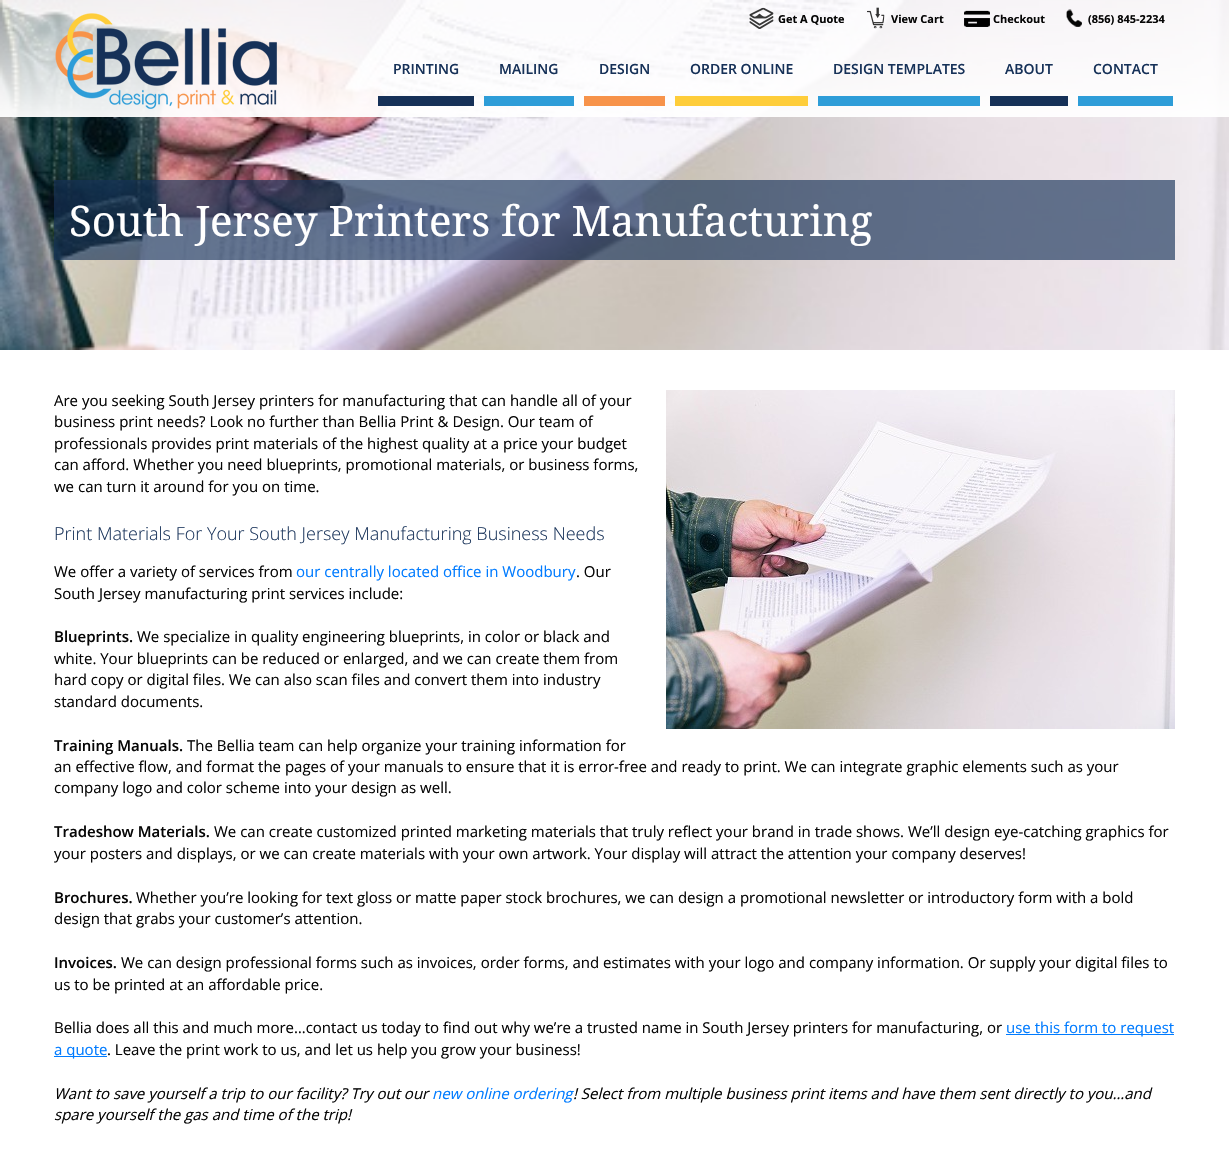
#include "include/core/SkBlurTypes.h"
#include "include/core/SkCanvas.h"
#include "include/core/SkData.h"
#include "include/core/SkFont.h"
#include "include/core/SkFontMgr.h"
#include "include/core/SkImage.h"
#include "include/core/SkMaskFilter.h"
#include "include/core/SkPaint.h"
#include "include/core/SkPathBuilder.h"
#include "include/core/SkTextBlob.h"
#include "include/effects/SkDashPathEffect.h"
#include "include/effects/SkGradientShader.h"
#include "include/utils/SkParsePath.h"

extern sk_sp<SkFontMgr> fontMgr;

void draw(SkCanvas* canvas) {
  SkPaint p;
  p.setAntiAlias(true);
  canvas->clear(SK_ColorWHITE);
  canvas->drawImageRect(SkImages::DeferredFromEncodedData(SkData::MakeFromFileName("images/6.png")), SkRect::MakeLTRB(0, 0, 1229, 350), SkSamplingOptions());
  canvas->drawImageRect(SkImages::DeferredFromEncodedData(SkData::MakeFromFileName("images/1.png")), SkRect::MakeLTRB(55, 13, 277, 109), SkSamplingOptions());
  canvas->drawImageRect(SkImages::DeferredFromEncodedData(SkData::MakeFromFileName("images/2.png")), SkRect::MakeLTRB(749, 7, 774, 29), SkSamplingOptions());
  canvas->drawImageRect(SkImages::DeferredFromEncodedData(SkData::MakeFromFileName("images/3.png")), SkRect::MakeLTRB(867, 7, 885, 29), SkSamplingOptions());
  canvas->drawImageRect(SkImages::DeferredFromEncodedData(SkData::MakeFromFileName("images/4.png")), SkRect::MakeLTRB(964, 10, 990, 27), SkSamplingOptions());
  canvas->drawImageRect(SkImages::DeferredFromEncodedData(SkData::MakeFromFileName("images/5.png")), SkRect::MakeLTRB(1066, 9, 1082, 27), SkSamplingOptions());
  p.setColor(SkColorSetRGB(22, 49, 88));
  canvas->drawRect(SkRect::MakeLTRB(378, 96, 474, 106), p);
  p.setColor(SkColorSetRGB(46, 157, 216));
  canvas->drawRect(SkRect::MakeLTRB(484, 96, 574, 106), p);
  p.setColor(SkColorSetRGB(247, 147, 74));
  canvas->drawRect(SkRect::MakeLTRB(584, 96, 665, 106), p);
  p.setColor(SkColorSetRGB(254, 205, 58));
  canvas->drawRect(SkRect::MakeLTRB(675, 96, 808, 106), p);
  p.setColor(SkColorSetRGB(46, 157, 216));
  canvas->drawRect(SkRect::MakeLTRB(818, 96, 980, 106), p);
  p.setColor(SkColorSetRGB(22, 49, 88));
  canvas->drawRect(SkRect::MakeLTRB(990, 96, 1068, 106), p);
  p.setColor(SkColorSetRGB(46, 157, 216));
  canvas->drawRect(SkRect::MakeLTRB(1078, 96, 1173, 106), p);
  p.setColor(SkColorSetARGB(166, 22, 49, 88));
  canvas->drawRect(SkRect::MakeLTRB(54, 180, 1175, 260), p);
  canvas->drawImageRect(SkImages::DeferredFromEncodedData(SkData::MakeFromFileName("images/7.png")), SkRect::MakeLTRB(666, 390, 1175, 729), SkSamplingOptions());
  p.setColor(SkColorSetRGB(0, 123, 255));
  canvas->drawRect(SkRect::MakeLTRB(1006, 1034, 1174, 1035), p);
  canvas->drawRect(SkRect::MakeLTRB(54, 1056, 107, 1057), p);
  SkFont font1(fontMgr->matchFamilyStyle("Open Sans", SkFontStyle::Bold()), 11);
  font1.setSubpixel(true);
  p.setColor(SkColorSetRGB(6, 6, 6));
  canvas->drawString("Get A Quote", 778, 23, font1, p);
  canvas->drawString("View Cart", 891, 23, font1, p);
  canvas->drawString("Checkout", 993, 23, font1, p);
  canvas->drawString("(856) 845-2234", 1088, 23, font1, p);
  SkFont font2(fontMgr->matchFamilyStyle("Open Sans", SkFontStyle(600, SkFontStyle::kNormal_Width, SkFontStyle::kUpright_Slant)), 14);
  font2.setSubpixel(true);
  p.setColor(SkColorSetRGB(22, 49, 88));
  canvas->drawString("PRINTING", 393, 74, font2, p);
  canvas->drawString("MAILING", 499, 74, font2, p);
  canvas->drawString("DESIGN", 599, 74, font2, p);
  canvas->drawString("ORDER ONLINE", 690, 74, font2, p);
  canvas->drawString("DESIGN TEMPLATES", 833, 74, font2, p);
  canvas->drawString("ABOUT", 1005, 74, font2, p);
  canvas->drawString("CONTACT", 1093, 74, font2, p);
  SkFont font3(fontMgr->matchFamilyStyle("Noto Serif", SkFontStyle::Normal()), 42);
  font3.setSubpixel(true);
  p.setColor(SK_ColorWHITE);
  canvas->drawString("South Jersey Printers for Manufacturing", 69, 236, font3, p);
  SkFont font4(fontMgr->matchFamilyStyle("Open Sans", SkFontStyle::Normal()), 15);
  font4.setSubpixel(true);
  p.setColor(SkColorSetRGB(6, 6, 6));
  canvas->drawString("Are you seeking South Jersey printers for manufacturing that can handle all of your", 54, 406, font4, p);
  canvas->drawString("business print needs? Look no further than Bellia Print & Design. Our team of", 54, 427, font4, p);
  canvas->drawString("professionals provides print materials of the highest quality at a price your budget", 54, 449, font4, p);
  canvas->drawString("can afford. Whether you need blueprints, promotional materials, or business forms,", 54, 470, font4, p);
  canvas->drawString("we can turn it around for you on time.", 54, 492, font4, p);
  SkFont font5(fontMgr->matchFamilyStyle("Open Sans", SkFontStyle(300, SkFontStyle::kNormal_Width, SkFontStyle::kUpright_Slant)), 18);
  font5.setSubpixel(true);
  p.setColor(SkColorSetRGB(30, 56, 94));
  canvas->drawString("Print Materials For Your South Jersey Manufacturing Business Needs", 54, 540, font5, p);
  p.setColor(SkColorSetRGB(6, 6, 6));
  canvas->drawString("We offer a variety of services from", 54, 577, font4, p);
  p.setColor(SkColorSetRGB(0, 123, 255));
  canvas->drawString("our centrally located office in Woodbury", 296, 577, font4, p);
  p.setColor(SkColorSetRGB(6, 6, 6));
  canvas->drawString(". Our", 576, 577, font4, p);
  canvas->drawString("South Jersey manufacturing print services include:", 54, 599, font4, p);
  SkFont font6(fontMgr->matchFamilyStyle("Open Sans", SkFontStyle(600, SkFontStyle::kNormal_Width, SkFontStyle::kUpright_Slant)), 15);
  font6.setSubpixel(true);
  canvas->drawString("Blueprints.", 54, 642, font6, p);
  canvas->drawString("We specialize in quality engineering blueprints, in color or black and", 137, 642, font4, p);
  canvas->drawString("white. Your blueprints can be reduced or enlarged, and we can create them from", 54, 664, font4, p);
  canvas->drawString("hard copy or digital files. We can also scan files and convert them into industry", 54, 685, font4, p);
  canvas->drawString("standard documents.", 54, 707, font4, p);
  canvas->drawString("Training Manuals.", 54, 751, font6, p);
  canvas->drawString("The Bellia team can help organize your training information for", 187, 751, font4, p);
  canvas->drawString("an effective flow, and format the pages of your manuals to ensure that it is error-free and ready to print. We can integrate graphic elements such as your", 54, 772, font4, p);
  canvas->drawString("company logo and color scheme into your design as well.", 54, 793, font4, p);
  canvas->drawString("Tradeshow Materials.", 54, 837, font6, p);
  canvas->drawString("We can create customized printed marketing materials that truly reflect your brand in trade shows. We’ll design eye-catching graphics for", 214, 837, font4, p);
  canvas->drawString("your posters and displays, or we can create materials with your own artwork. Your display will attract the attention your company deserves!", 54, 859, font4, p);
  canvas->drawString("Brochures.", 54, 903, font6, p);
  canvas->drawString("Whether you’re looking for text gloss or matte paper stock brochures, we can design a promotional newsletter or introductory form with a bold", 136, 903, font4, p);
  canvas->drawString("design that grabs your customer’s attention.", 54, 924, font4, p);
  canvas->drawString("Invoices.", 54, 968, font6, p);
  canvas->drawString("We can design professional forms such as invoices, order forms, and estimates with your logo and company information. Or supply your digital files to", 121, 968, font4, p);
  canvas->drawString("us to be printed at an affordable price.", 54, 990, font4, p);
  canvas->drawString("Bellia does all this and much more…contact us today to find out why we’re a trusted name in South Jersey printers for manufacturing, or", 54, 1033, font4, p);
  p.setColor(SkColorSetRGB(0, 123, 255));
  canvas->drawString("use this form to request", 1006, 1033, font4, p);
  canvas->drawString("a quote", 54, 1055, font4, p);
  p.setColor(SkColorSetRGB(6, 6, 6));
  canvas->drawString(". Leave the print work to us, and let us help you grow your business!", 107, 1055, font4, p);
  SkFont font7(fontMgr->matchFamilyStyle("Open Sans", SkFontStyle::Italic()), 15);
  font7.setSubpixel(true);
  canvas->drawString("Want to save yourself a trip to our facility? Try out our", 54, 1099, font7, p);
  p.setColor(SkColorSetRGB(0, 123, 255));
  canvas->drawString("new online ordering", 432, 1099, font7, p);
  p.setColor(SkColorSetRGB(6, 6, 6));
  canvas->drawString("! Select from multiple business print items and have them sent directly to you…and", 573, 1099, font7, p);
  canvas->drawString("spare yourself the gas and time of the trip!", 54, 1120, font7, p);
}
